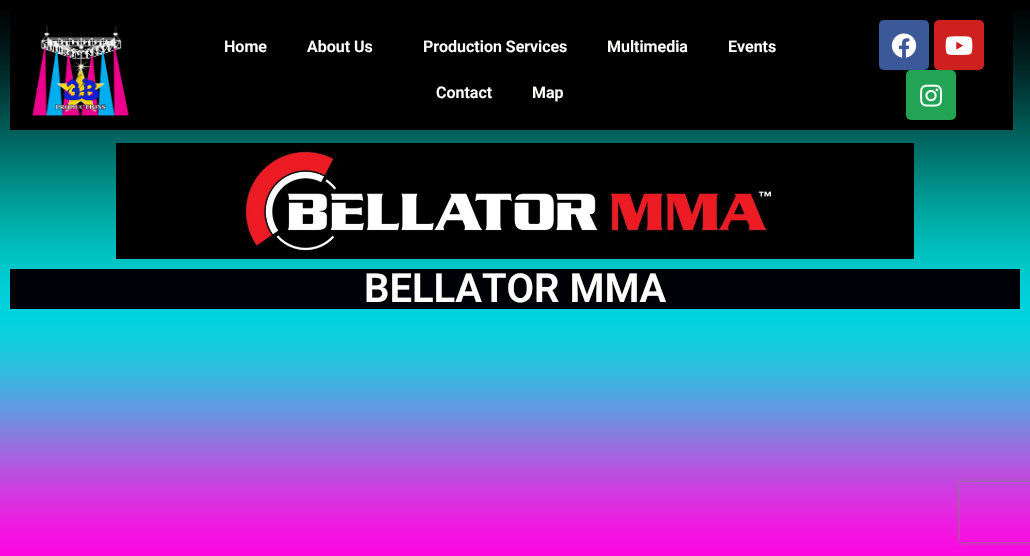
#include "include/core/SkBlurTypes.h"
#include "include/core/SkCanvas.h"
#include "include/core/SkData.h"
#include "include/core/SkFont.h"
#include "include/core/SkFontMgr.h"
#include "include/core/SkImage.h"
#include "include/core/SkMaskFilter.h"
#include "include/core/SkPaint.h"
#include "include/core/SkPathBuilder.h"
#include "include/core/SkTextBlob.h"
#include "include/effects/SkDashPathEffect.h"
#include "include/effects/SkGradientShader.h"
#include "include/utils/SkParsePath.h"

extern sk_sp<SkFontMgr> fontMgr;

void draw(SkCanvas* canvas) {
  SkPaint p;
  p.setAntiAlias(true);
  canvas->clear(SK_ColorBLACK);
  canvas->drawImageRect(SkImages::DeferredFromEncodedData(SkData::MakeFromFileName("images/1.png")), SkRect::MakeLTRB(0, 11, 1030, 556), SkSamplingOptions());
  p.setColor(SK_ColorBLACK);
  canvas->drawRect(SkRect::MakeLTRB(10, 11, 1013, 130), p);
  canvas->drawImageRect(SkImages::DeferredFromEncodedData(SkData::MakeFromFileName("images/2.png")), SkRect::MakeLTRB(32, 25, 129, 117), SkSamplingOptions());
  p.setColor(SkColorSetRGB(59, 89, 152));
  canvas->drawRoundRect(SkRect::MakeLTRB(879, 20, 929, 70), 5, 5, p);
  canvas->drawImageRect(SkImages::DeferredFromEncodedData(SkData::MakeFromFileName("images/3.png")), SkRect::MakeLTRB(891, 33, 917, 58), SkSamplingOptions());
  p.setColor(SkColorSetRGB(205, 32, 31));
  canvas->drawRoundRect(SkRect::MakeLTRB(934, 20, 984, 70), 5, 5, p);
  canvas->drawImageRect(SkImages::DeferredFromEncodedData(SkData::MakeFromFileName("images/4.png")), SkRect::MakeLTRB(945, 36, 973, 55), SkSamplingOptions());
  p.setColor(SkColorSetRGB(35, 164, 85));
  canvas->drawRoundRect(SkRect::MakeLTRB(906, 70, 956, 120), 5, 5, p);
  canvas->drawImageRect(SkImages::DeferredFromEncodedData(SkData::MakeFromFileName("images/5.png")), SkRect::MakeLTRB(920, 84, 942, 107), SkSamplingOptions());
  canvas->drawImageRect(SkImages::DeferredFromEncodedData(SkData::MakeFromFileName("images/6.png")), SkRect::MakeLTRB(116, 143, 914, 259), SkSamplingOptions());
  p.setColor(SkColorSetRGB(0, 1, 7));
  canvas->drawRect(SkRect::MakeLTRB(10, 269, 1020, 309), p);
  canvas->save();
  canvas->clipPath(SkPathBuilder(SkPathFillType::kEvenOdd).moveTo(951, 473).lineTo(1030, 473).lineTo(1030, 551).lineTo(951, 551).close().moveTo(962, 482).lineTo(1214, 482).cubicTo(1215, 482, 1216, 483, 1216, 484).lineTo(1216, 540).cubicTo(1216, 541, 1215, 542, 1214, 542).lineTo(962, 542).cubicTo(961, 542, 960, 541, 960, 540).lineTo(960, 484).cubicTo(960, 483, 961, 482, 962, 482).close().detach(), true);
  p.setColor(SkColorSetRGB(128, 128, 128));
  p.setMaskFilter(SkMaskFilter::MakeBlur(kNormal_SkBlurStyle, 2.5f));
  canvas->drawRoundRect(SkRect::MakeLTRB(960, 482, 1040, 542), 2, 2, p);
  p.setMaskFilter(nullptr);
  canvas->restore();
  SkFont font1(fontMgr->matchFamilyStyle("Roboto", SkFontStyle(600, SkFontStyle::kNormal_Width, SkFontStyle::kUpright_Slant)), 16);
  font1.setSubpixel(true);
  p.setColor(SkColorSetRGB(255, 255, 253));
  canvas->drawString("Home", 224, 52, font1, p);
  canvas->drawString("About Us", 307, 52, font1, p);
  canvas->drawString("Production Services", 423, 52, font1, p);
  canvas->drawString("Multimedia", 607, 52, font1, p);
  canvas->drawString("Events", 728, 52, font1, p);
  canvas->drawString("Contact", 436, 98, font1, p);
  canvas->drawString("Map", 532, 98, font1, p);
  SkFont font2(fontMgr->matchFamilyStyle("Roboto", SkFontStyle(600, SkFontStyle::kNormal_Width, SkFontStyle::kUpright_Slant)), 40);
  font2.setSubpixel(true);
  canvas->drawString("BELLATOR MMA", 364, 302, font2, p);
}
